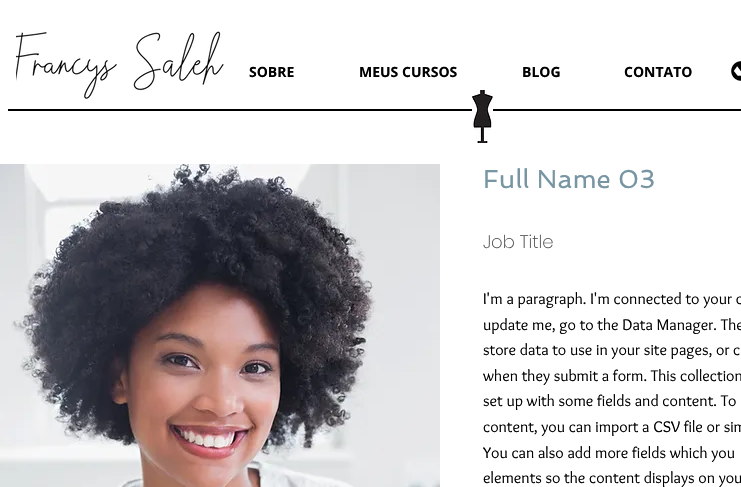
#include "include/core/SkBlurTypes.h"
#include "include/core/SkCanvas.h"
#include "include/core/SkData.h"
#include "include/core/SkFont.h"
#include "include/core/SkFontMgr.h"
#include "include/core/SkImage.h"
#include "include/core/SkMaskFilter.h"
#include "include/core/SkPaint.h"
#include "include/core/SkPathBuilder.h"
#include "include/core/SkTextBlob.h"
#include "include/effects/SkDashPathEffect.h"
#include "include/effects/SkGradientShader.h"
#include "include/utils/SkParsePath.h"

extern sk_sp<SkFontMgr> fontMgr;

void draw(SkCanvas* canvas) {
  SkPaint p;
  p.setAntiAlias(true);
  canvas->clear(SK_ColorWHITE);
  canvas->drawImageRect(SkImages::DeferredFromEncodedData(SkData::MakeFromFileName("images/1.png")), SkRect::MakeLTRB(16, 31, 224, 99), SkSamplingOptions());
  canvas->drawImageRect(SkImages::DeferredFromEncodedData(SkData::MakeFromFileName("images/2.png")), SkRect::MakeLTRB(731, 61, 741, 81), SkSamplingOptions());
  p.setColor(SK_ColorBLACK);
  canvas->drawRect(SkRect::MakeLTRB(8, 109, 741, 111), p);
  canvas->drawImageRect(SkImages::DeferredFromEncodedData(SkData::MakeFromFileName("images/3.png")), SkRect::MakeLTRB(472, 90, 493, 143), SkSamplingOptions());
  canvas->drawImageRect(SkImages::DeferredFromEncodedData(SkData::MakeFromFileName("images/4.png")), SkRect::MakeLTRB(0, 164, 440, 487), SkSamplingOptions());
  SkFont font1(fontMgr->matchFamilyStyle("Open Sans", SkFontStyle::Bold()), 14);
  font1.setSubpixel(true);
  canvas->drawString("SOBRE", 249, 77, font1, p);
  canvas->drawString("MEUS CURSOS", 359, 77, font1, p);
  canvas->drawString("BLOG", 522, 77, font1, p);
  canvas->drawString("CONTATO", 624, 77, font1, p);
  SkFont font2(fontMgr->matchFamilyStyle("Spinnaker", SkFontStyle::Normal()), 26);
  font2.setSubpixel(true);
  p.setColor(SkColorSetRGB(119, 149, 163));
  canvas->drawString("Full Name 03", 483, 188, font2, p);
  SkFont font3(fontMgr->matchFamilyStyle("Poppins", SkFontStyle(200, SkFontStyle::kNormal_Width, SkFontStyle::kUpright_Slant)), 18);
  font3.setSubpixel(true);
  p.setColor(SkColorSetRGB(80, 79, 79));
  canvas->drawString("Job Title", 483, 248, font3, p);
  SkFont font4(fontMgr->matchFamilyStyle("Overlock", SkFontStyle::Normal()), 16);
  font4.setSubpixel(true);
  p.setColor(SK_ColorBLACK);
  canvas->drawString("I'm a paragraph. I'm connected to your c", 483, 304, font4, p);
  canvas->drawString("update me, go to the Data Manager. The", 483, 330, font4, p);
  canvas->drawString("store data to use in your site pages, or c", 483, 355, font4, p);
  canvas->drawString("when they submit a form. This collection", 483, 381, font4, p);
  canvas->drawString("set up with some fields and content. To", 483, 406, font4, p);
  canvas->drawString("content, you can import a CSV file or sim", 483, 432, font4, p);
  canvas->drawString("You can also add more fields which you", 483, 458, font4, p);
  canvas->drawString("elements so the content displays on you", 483, 483, font4, p);
}
